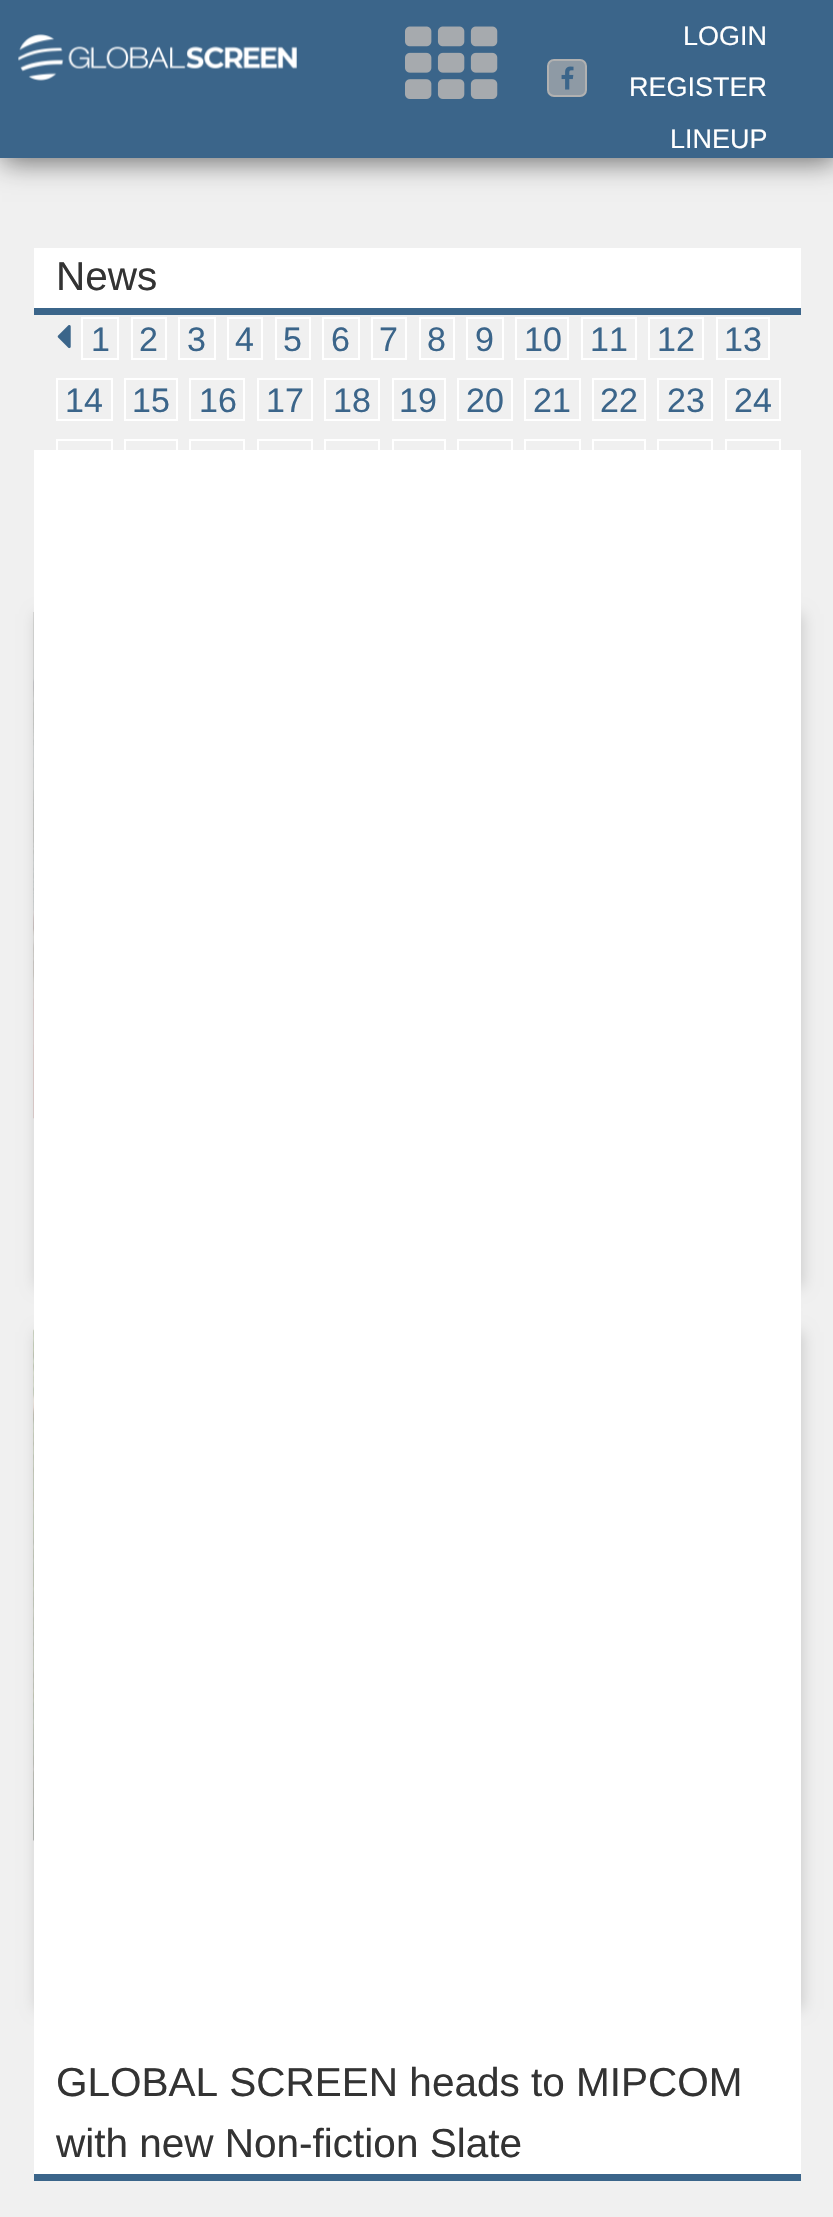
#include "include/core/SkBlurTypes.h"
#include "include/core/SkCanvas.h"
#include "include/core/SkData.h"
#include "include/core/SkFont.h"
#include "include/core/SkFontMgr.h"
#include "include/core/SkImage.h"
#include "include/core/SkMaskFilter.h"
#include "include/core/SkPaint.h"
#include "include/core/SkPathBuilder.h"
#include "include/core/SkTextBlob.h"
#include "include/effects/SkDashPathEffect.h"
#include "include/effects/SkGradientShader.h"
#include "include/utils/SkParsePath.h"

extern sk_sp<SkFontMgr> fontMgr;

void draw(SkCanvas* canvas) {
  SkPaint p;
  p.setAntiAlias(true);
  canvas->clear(SkColorSetRGB(240, 240, 240));
  p.setColor(SkColorSetARGB(140, 0, 0, 0));
  p.setMaskFilter(SkMaskFilter::MakeBlur(kNormal_SkBlurStyle, 13.5f));
  canvas->drawRect(SkRect::MakeLTRB(2, 5, 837, 162), p);
  p.setMaskFilter(nullptr);
  p.setColor(SkColorSetRGB(59, 101, 138));
  canvas->drawRect(SkRect::MakeLTRB(0, 0, 833, 158), p);
  canvas->drawImageRect(SkImages::DeferredFromEncodedData(SkData::MakeFromFileName("images/1.png")), SkRect::MakeLTRB(18, 34, 297, 81), SkSamplingOptions());
  canvas->drawImageRect(SkImages::DeferredFromEncodedData(SkData::MakeFromFileName("images/2.png")), SkRect::MakeLTRB(405, 26, 498, 99), SkSamplingOptions());
  p.setColor(SkColorSetRGB(142, 154, 165));
  canvas->drawRoundRect(SkRect::MakeLTRB(548, 60, 586, 96), 6, 6, p);
  p.setStyle(SkPaint::kStroke_Style);
  p.setStrokeWidth(2);
  p.setColor(SkColorSetRGB(177, 177, 177));
  canvas->drawRoundRect(SkRect::MakeLTRB(548, 60, 586, 96), 6, 6, p);
  canvas->drawImageRect(SkImages::DeferredFromEncodedData(SkData::MakeFromFileName("images/3.png")), SkRect::MakeLTRB(561, 66, 574, 90), SkSamplingOptions());
  p.setStyle(SkPaint::kFill_Style);
  p.setColor(SK_ColorWHITE);
  canvas->drawRect(SkRect::MakeLTRB(34, 248, 801, 308), p);
  p.setColor(SkColorSetRGB(59, 101, 138));
  canvas->drawRect(SkRect::MakeLTRB(34, 308, 801, 315), p);
  canvas->drawImageRect(SkImages::DeferredFromEncodedData(SkData::MakeFromFileName("images/4.png")), SkRect::MakeLTRB(57, 325, 71, 349), SkSamplingOptions());
  p.setStyle(SkPaint::kStroke_Style);
  p.setColor(SK_ColorWHITE);
  canvas->drawRect(SkRect::MakeLTRB(82, 318, 118, 359), p);
  canvas->drawRect(SkRect::MakeLTRB(132, 318, 166, 359), p);
  canvas->drawRect(SkRect::MakeLTRB(179, 318, 215, 359), p);
  canvas->drawRect(SkRect::MakeLTRB(228, 318, 262, 359), p);
  canvas->drawRect(SkRect::MakeLTRB(276, 318, 310, 359), p);
  canvas->drawRect(SkRect::MakeLTRB(323, 318, 359, 359), p);
  canvas->drawRect(SkRect::MakeLTRB(372, 318, 406, 359), p);
  canvas->drawRect(SkRect::MakeLTRB(420, 318, 454, 359), p);
  canvas->drawRect(SkRect::MakeLTRB(467, 318, 503, 359), p);
  canvas->drawRect(SkRect::MakeLTRB(516, 318, 568, 359), p);
  canvas->drawRect(SkRect::MakeLTRB(582, 318, 636, 359), p);
  canvas->drawRect(SkRect::MakeLTRB(649, 318, 703, 359), p);
  canvas->drawRect(SkRect::MakeLTRB(717, 318, 769, 359), p);
  canvas->drawRect(SkRect::MakeLTRB(57, 379, 112, 420), p);
  canvas->drawRect(SkRect::MakeLTRB(125, 379, 177, 420), p);
  canvas->drawRect(SkRect::MakeLTRB(190, 379, 244, 420), p);
  canvas->drawRect(SkRect::MakeLTRB(258, 379, 312, 420), p);
  canvas->drawRect(SkRect::MakeLTRB(325, 379, 379, 420), p);
  canvas->drawRect(SkRect::MakeLTRB(393, 379, 445, 420), p);
  canvas->drawRect(SkRect::MakeLTRB(458, 379, 512, 420), p);
  canvas->drawRect(SkRect::MakeLTRB(525, 379, 580, 420), p);
  canvas->drawRect(SkRect::MakeLTRB(593, 379, 645, 420), p);
  canvas->drawRect(SkRect::MakeLTRB(658, 379, 712, 420), p);
  canvas->drawRect(SkRect::MakeLTRB(726, 379, 780, 420), p);
  canvas->drawRect(SkRect::MakeLTRB(57, 440, 112, 481), p);
  canvas->drawRect(SkRect::MakeLTRB(125, 440, 177, 481), p);
  canvas->drawRect(SkRect::MakeLTRB(190, 440, 244, 481), p);
  canvas->drawRect(SkRect::MakeLTRB(258, 440, 312, 481), p);
  canvas->drawRect(SkRect::MakeLTRB(325, 440, 379, 481), p);
  canvas->drawRect(SkRect::MakeLTRB(393, 440, 445, 481), p);
  canvas->drawRect(SkRect::MakeLTRB(458, 440, 512, 481), p);
  canvas->drawRect(SkRect::MakeLTRB(525, 440, 580, 481), p);
  canvas->drawRect(SkRect::MakeLTRB(593, 440, 645, 481), p);
  canvas->drawRect(SkRect::MakeLTRB(658, 440, 712, 481), p);
  canvas->drawRect(SkRect::MakeLTRB(726, 440, 780, 481), p);
  p.setStyle(SkPaint::kFill_Style);
  p.setColor(SkColorSetRGB(202, 202, 202));
  p.setMaskFilter(SkMaskFilter::MakeBlur(kNormal_SkBlurStyle, 7));
  canvas->drawRect(SkRect::MakeLTRB(36, 614, 803, 1287), p);
  p.setMaskFilter(nullptr);
  canvas->drawImageRect(SkImages::DeferredFromEncodedData(SkData::MakeFromFileName("images/5.png")), SkRect::MakeLTRB(33, 612, 34, 1119), SkSamplingOptions());
  p.setMaskFilter(SkMaskFilter::MakeBlur(kNormal_SkBlurStyle, 7));
  canvas->drawRect(SkRect::MakeLTRB(36, 1332, 803, 2009), p);
  p.setMaskFilter(nullptr);
  canvas->drawImageRect(SkImages::DeferredFromEncodedData(SkData::MakeFromFileName("images/6.png")), SkRect::MakeLTRB(33, 1329, 34, 1841), SkSamplingOptions());
  p.setColor(SK_ColorWHITE);
  canvas->drawRect(SkRect::MakeLTRB(34, 450, 801, 2174), p);
  p.setColor(SkColorSetRGB(59, 101, 138));
  canvas->drawRect(SkRect::MakeLTRB(34, 2174, 801, 2181), p);
  SkFont font1(fontMgr->matchFamilyStyle("Liberation Sans", SkFontStyle::Normal()), 27);
  font1.setSubpixel(true);
  p.setColor(SK_ColorWHITE);
  canvas->drawString("LOGIN", 683, 45, font1, p);
  canvas->drawString("REGISTER", 629, 96, font1, p);
  canvas->drawString("LINEUP", 670, 148, font1, p);
  SkFont font2(fontMgr->matchFamilyStyle("Liberation Sans", SkFontStyle::Normal()), 40.5f);
  font2.setSubpixel(true);
  p.setColor(SkColorSetRGB(51, 51, 51));
  canvas->drawString("News", 56, 290, font2, p);
  SkFont font3(fontMgr->matchFamilyStyle("Liberation Sans", SkFontStyle::Normal()), 34);
  font3.setSubpixel(true);
  p.setColor(SkColorSetRGB(59, 101, 138));
  canvas->drawString("1", 91, 351, font3, p);
  canvas->drawString("2", 139, 351, font3, p);
  canvas->drawString("3", 187, 351, font3, p);
  canvas->drawString("4", 235, 351, font3, p);
  canvas->drawString("5", 283, 351, font3, p);
  canvas->drawString("6", 331, 351, font3, p);
  canvas->drawString("7", 379, 351, font3, p);
  canvas->drawString("8", 427, 351, font3, p);
  canvas->drawString("9", 475, 351, font3, p);
  canvas->drawString("10", 524, 351, font3, p);
  canvas->drawString("11", 590, 351, font3, p);
  canvas->drawString("12", 657, 351, font3, p);
  canvas->drawString("13", 724, 351, font3, p);
  canvas->drawString("14", 65, 412, font3, p);
  canvas->drawString("15", 132, 412, font3, p);
  canvas->drawString("16", 199, 412, font3, p);
  canvas->drawString("17", 266, 412, font3, p);
  canvas->drawString("18", 333, 412, font3, p);
  canvas->drawString("19", 399, 412, font3, p);
  canvas->drawString("20", 466, 412, font3, p);
  canvas->drawString("21", 533, 412, font3, p);
  canvas->drawString("22", 600, 412, font3, p);
  canvas->drawString("23", 667, 412, font3, p);
  canvas->drawString("24", 734, 412, font3, p);
  p.setColor(SkColorSetRGB(51, 51, 51));
  canvas->drawString("GLOBAL SCREEN heads to MIPCOM", 56, 2096, font2, p);
  canvas->drawString("with new Non-fiction Slate", 56, 2157, font2, p);
}
